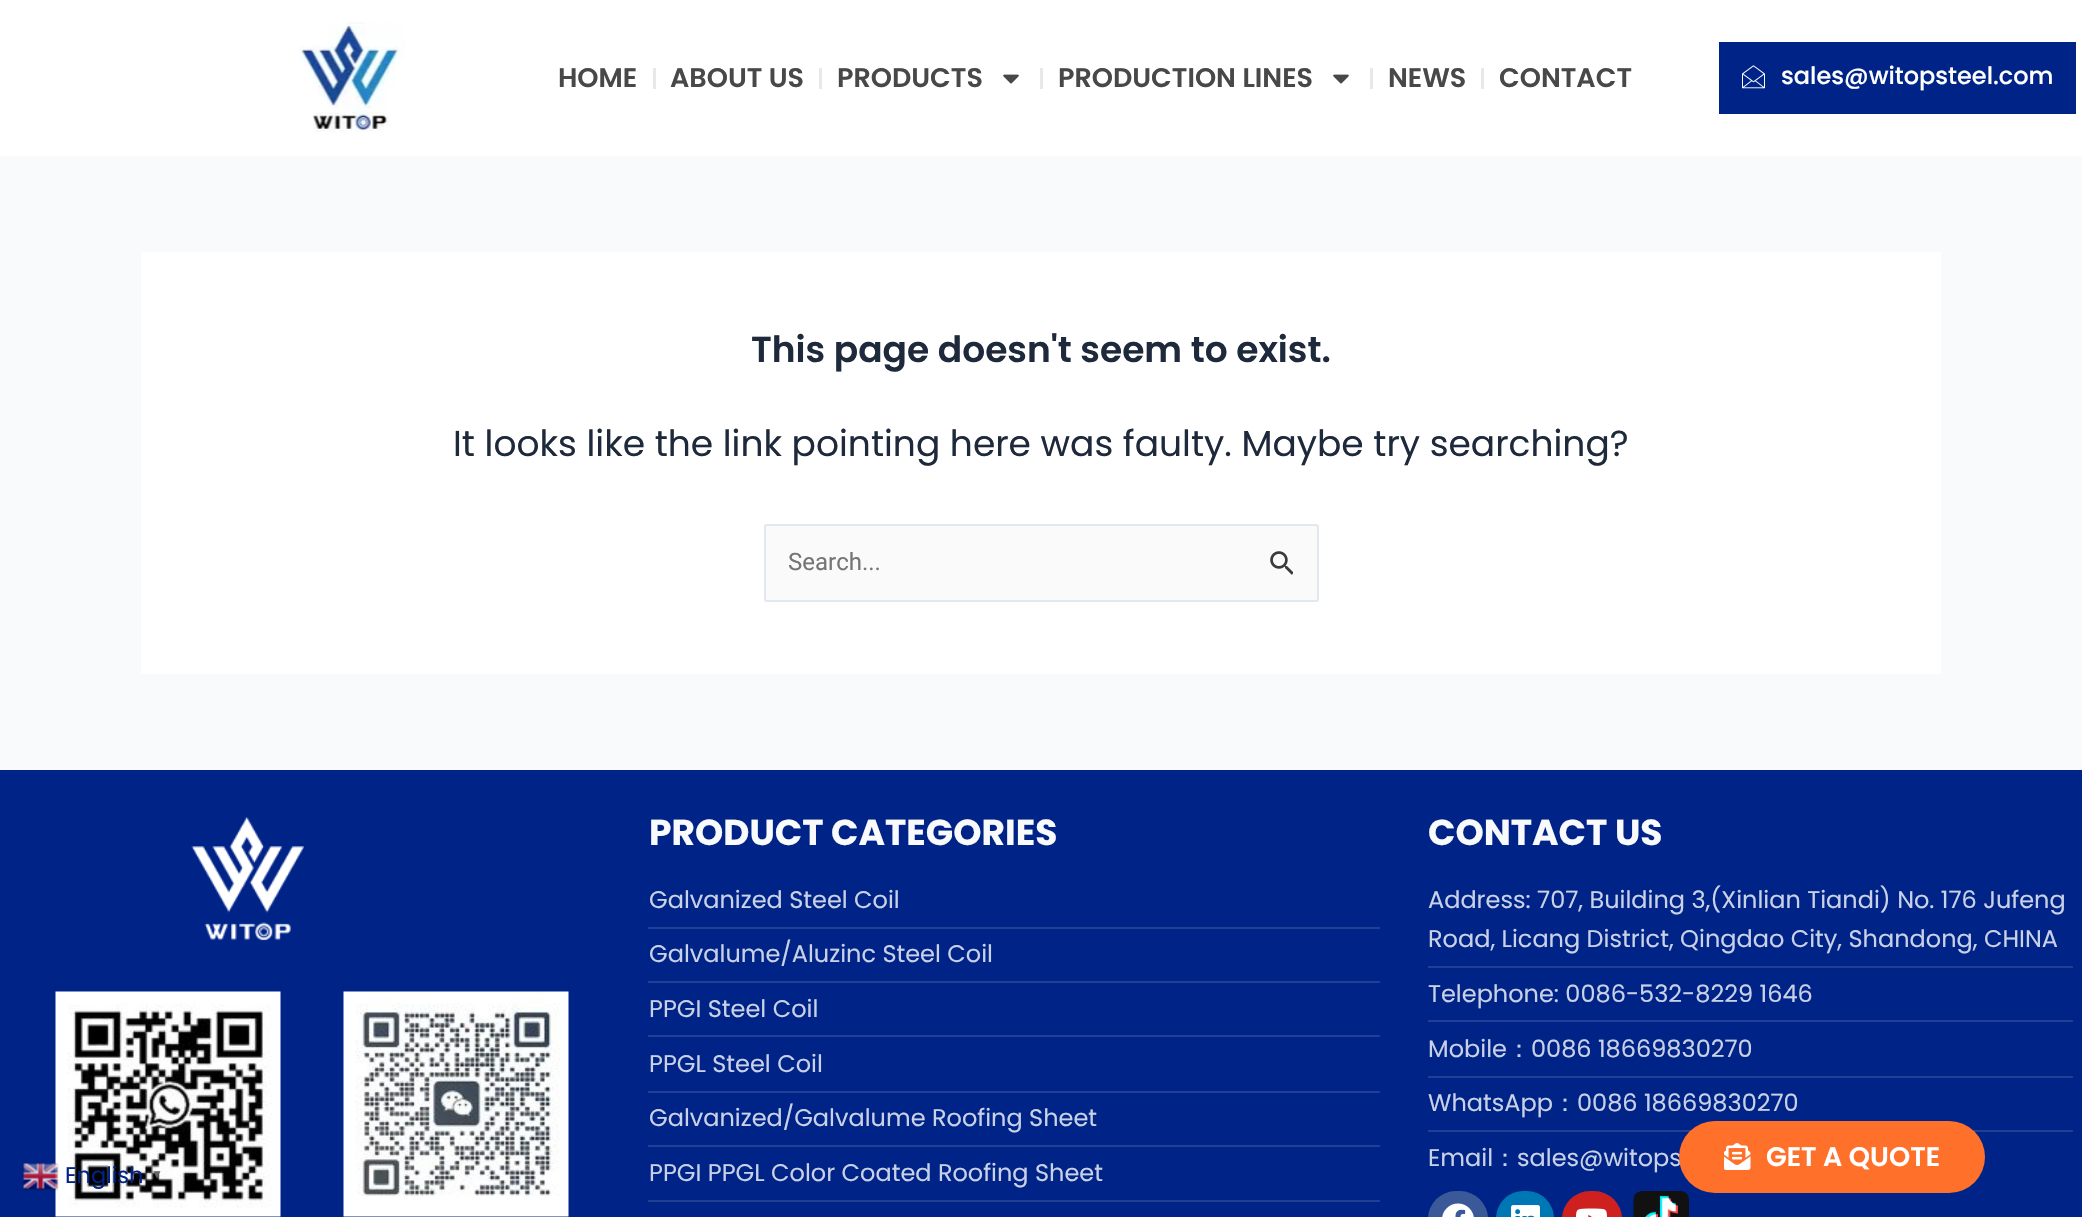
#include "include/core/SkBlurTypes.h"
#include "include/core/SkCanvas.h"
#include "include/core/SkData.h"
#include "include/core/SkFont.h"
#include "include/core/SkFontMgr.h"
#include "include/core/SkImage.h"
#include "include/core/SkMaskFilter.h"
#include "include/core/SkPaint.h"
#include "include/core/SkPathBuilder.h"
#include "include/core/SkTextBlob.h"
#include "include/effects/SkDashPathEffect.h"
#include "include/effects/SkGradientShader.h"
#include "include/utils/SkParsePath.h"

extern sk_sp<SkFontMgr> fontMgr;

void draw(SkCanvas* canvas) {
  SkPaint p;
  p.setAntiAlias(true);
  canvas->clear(SkColorSetRGB(249, 250, 251));
  p.setColor(SkColorSetRGB(0, 35, 135));
  canvas->drawRect(SkRect::MakeLTRB(0, 770, 2082, 1217), p);
  canvas->drawImageRect(SkImages::DeferredFromEncodedData(SkData::MakeFromFileName("images/7.png")), SkRect::MakeLTRB(55, 991, 281, 1217), SkSamplingOptions());
  canvas->drawImageRect(SkImages::DeferredFromEncodedData(SkData::MakeFromFileName("images/1.png")), SkRect::MakeLTRB(22, 1163, 59, 1191), SkSamplingOptions());
  p.setColor(SK_ColorWHITE);
  canvas->drawRect(SkRect::MakeLTRB(0, 0, 2082, 156), p);
  canvas->drawImageRect(SkImages::DeferredFromEncodedData(SkData::MakeFromFileName("images/2.png")), SkRect::MakeLTRB(299, 22, 405, 134), SkSamplingOptions());
  p.setColor(SkColorSetRGB(230, 233, 236));
  canvas->drawRect(SkRect::MakeLTRB(653, 68, 656, 89), p);
  canvas->drawRect(SkRect::MakeLTRB(819, 68, 822, 89), p);
  canvas->drawImageRect(SkImages::DeferredFromEncodedData(SkData::MakeFromFileName("images/3.png")), SkRect::MakeLTRB(1003, 74, 1019, 84), SkSamplingOptions());
  canvas->drawRect(SkRect::MakeLTRB(1040, 68, 1043, 89), p);
  canvas->drawImageRect(SkImages::DeferredFromEncodedData(SkData::MakeFromFileName("images/3.png")), SkRect::MakeLTRB(1333, 74, 1349, 84), SkSamplingOptions());
  canvas->drawRect(SkRect::MakeLTRB(1370, 68, 1373, 89), p);
  canvas->drawRect(SkRect::MakeLTRB(1481, 68, 1484, 89), p);
  p.setColor(SkColorSetRGB(0, 35, 135));
  canvas->drawRect(SkRect::MakeLTRB(1719, 42, 2076, 114), p);
  canvas->drawImageRect(SkImages::DeferredFromEncodedData(SkData::MakeFromFileName("images/4.png")), SkRect::MakeLTRB(1742, 65, 1765, 89), SkSamplingOptions());
  p.setColor(SK_ColorWHITE);
  canvas->drawRect(SkRect::MakeLTRB(141, 252, 1941, 674), p);
  p.setColor(SkColorSetRGB(250, 250, 250));
  canvas->drawRoundRect(SkRect::MakeLTRB(765, 525, 1318, 601), 2, 2, p);
  p.setStyle(SkPaint::kStroke_Style);
  p.setStrokeWidth(2);
  p.setColor(SkColorSetRGB(226, 232, 240));
  canvas->drawRoundRect(SkRect::MakeLTRB(765, 525, 1318, 601), 2, 2, p);
  canvas->drawImageRect(SkImages::DeferredFromEncodedData(SkData::MakeFromFileName("images/5.png")), SkRect::MakeLTRB(1270, 551, 1293, 575), SkSamplingOptions());
  canvas->drawImageRect(SkImages::DeferredFromEncodedData(SkData::MakeFromFileName("images/6.png")), SkRect::MakeLTRB(191, 817, 304, 941), SkSamplingOptions());
  canvas->drawImageRect(SkImages::DeferredFromEncodedData(SkData::MakeFromFileName("images/8.png")), SkRect::MakeLTRB(343, 991, 569, 1217), SkSamplingOptions());
  p.setStyle(SkPaint::kFill_Style);
  p.setColor(SkColorSetRGB(33, 63, 148));
  canvas->drawRect(SkRect::MakeLTRB(648, 927, 1380, 929), p);
  canvas->drawRect(SkRect::MakeLTRB(648, 981, 1380, 983), p);
  canvas->drawRect(SkRect::MakeLTRB(648, 1035, 1380, 1037), p);
  canvas->drawRect(SkRect::MakeLTRB(648, 1091, 1380, 1093), p);
  canvas->drawRect(SkRect::MakeLTRB(648, 1145, 1380, 1147), p);
  canvas->drawRect(SkRect::MakeLTRB(648, 1200, 1380, 1202), p);
  canvas->drawRect(SkRect::MakeLTRB(1428, 966, 2073, 968), p);
  canvas->drawRect(SkRect::MakeLTRB(1428, 1020, 2073, 1022), p);
  canvas->drawRect(SkRect::MakeLTRB(1428, 1076, 2073, 1078), p);
  canvas->drawRect(SkRect::MakeLTRB(1428, 1130, 2073, 1132), p);
  p.setColor(SkColorSetRGB(59, 89, 152));
  canvas->drawRoundRect(SkRect::MakeLTRB(1428, 1191, 1488, 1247), 29.5f, 29.5f, p);
  canvas->drawImageRect(SkImages::DeferredFromEncodedData(SkData::MakeFromFileName("images/10.png")), SkRect::MakeLTRB(1442, 1203, 1474, 1217), SkSamplingOptions());
  p.setColor(SkColorSetRGB(0, 119, 181));
  canvas->drawRoundRect(SkRect::MakeLTRB(1496, 1191, 1554, 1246), 29, 29, p);
  canvas->drawImageRect(SkImages::DeferredFromEncodedData(SkData::MakeFromFileName("images/11.png")), SkRect::MakeLTRB(1511, 1205, 1540, 1217), SkSamplingOptions());
  p.setColor(SkColorSetRGB(205, 32, 31));
  canvas->drawRoundRect(SkRect::MakeLTRB(1562, 1191, 1622, 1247), 29.5f, 29.5f, p);
  canvas->drawImageRect(SkImages::DeferredFromEncodedData(SkData::MakeFromFileName("images/12.png")), SkRect::MakeLTRB(1575, 1208, 1608, 1217), SkSamplingOptions());
  canvas->drawImageRect(SkImages::DeferredFromEncodedData(SkData::MakeFromFileName("images/13.png")), SkRect::MakeLTRB(1633, 1191, 1689, 1217), SkSamplingOptions());
  SkFont font1(fontMgr->matchFamilyStyle("Poppins", SkFontStyle::Normal()), 22.5f);
  font1.setSubpixel(true);
  p.setColor(SkColorSetRGB(0, 35, 135));
  canvas->drawString("English", 65, 1183, font1, p);
  SkFont font2(fontMgr->matchFamilyStyle("Liberation Sans", SkFontStyle::Bold()), 12);
  font2.setSubpixel(true);
  p.setColor(SkColorSetRGB(102, 102, 102));
  canvas->drawString("▼", 151, 1178, font2, p);
  SkFont font3(fontMgr->matchFamilyStyle("Poppins", SkFontStyle(600, SkFontStyle::kNormal_Width, SkFontStyle::kUpright_Slant)), 27);
  font3.setSubpixel(true);
  p.setColor(SkColorSetRGB(72, 72, 72));
  canvas->drawString("HOME", 558, 87, font3, p);
  canvas->drawString("ABOUT US", 670, 87, font3, p);
  canvas->drawString("PRODUCTS", 837, 87, font3, p);
  canvas->drawString("PRODUCTION LINES", 1058, 87, font3, p);
  canvas->drawString("NEWS", 1388, 87, font3, p);
  canvas->drawString("CONTACT", 1499, 87, font3, p);
  SkFont font4(fontMgr->matchFamilyStyle("Poppins", SkFontStyle(500, SkFontStyle::kNormal_Width, SkFontStyle::kUpright_Slant)), 24);
  font4.setSubpixel(true);
  p.setColor(SK_ColorWHITE);
  canvas->drawString("sales@witopsteel.com", 1781, 84, font4, p);
  SkFont font5(fontMgr->matchFamilyStyle("Poppins", SkFontStyle(600, SkFontStyle::kNormal_Width, SkFontStyle::kUpright_Slant)), 36);
  font5.setSubpixel(true);
  p.setColor(SkColorSetRGB(30, 41, 59));
  canvas->drawString("This page doesn't seem to exist.", 751, 362, font5, p);
  SkFont font6(fontMgr->matchFamilyStyle("Poppins", SkFontStyle::Normal()), 36);
  font6.setSubpixel(true);
  canvas->drawString("It looks like the link pointing here was faulty. Maybe try searching?", 453, 456, font6, p);
  SkFont font7(fontMgr->matchFamilyStyle("Roboto", SkFontStyle::Normal()), 24);
  font7.setSubpixel(true);
  p.setColor(SkColorSetRGB(117, 117, 117));
  canvas->drawString("Search...", 788, 570, font7, p);
  SkFont font8(fontMgr->matchFamilyStyle("Poppins", SkFontStyle::Bold()), 36);
  font8.setSubpixel(true);
  p.setColor(SkColorSetRGB(249, 250, 251));
  canvas->drawString("PRODUCT CATEGORIES", 649, 845, font8, p);
  SkFont font9(fontMgr->matchFamilyStyle("Poppins", SkFontStyle::Normal()), 24);
  font9.setSubpixel(true);
  p.setColor(SkColorSetRGB(201, 209, 230));
  canvas->drawString("Galvanized Steel Coil", 649, 908, font9, p);
  canvas->drawString("Galvalume/Aluzinc Steel Coil", 649, 962, font9, p);
  canvas->drawString("PPGI Steel Coil", 649, 1017, font9, p);
  canvas->drawString("PPGL Steel Coil", 649, 1072, font9, p);
  canvas->drawString("Galvanized/Galvalume Roofing Sheet", 649, 1126, font9, p);
  canvas->drawString("PPGI PPGL Color Coated Roofing Sheet", 649, 1181, font9, p);
  p.setColor(SkColorSetRGB(249, 250, 251));
  canvas->drawString("CONTACT US", 1428, 845, font8, p);
  p.setColor(SkColorSetRGB(201, 209, 230));
  canvas->drawString("Address: 707, Building 3,(Xinlian Tiandi) No. 176 Jufeng", 1428, 908, font9, p);
  canvas->drawString("Road, Licang District, Qingdao City, Shandong, CHINA", 1428, 947, font9, p);
  canvas->drawString("Telephone: 0086-532-8229 1646", 1428, 1002, font9, p);
  canvas->drawString("Mobile", 1428, 1057, font9, p);
  SkFont font10(fontMgr->matchFamilyStyle("WenQuanYi Zen Hei", SkFontStyle(500, SkFontStyle::kNormal_Width, SkFontStyle::kUpright_Slant)), 24);
  font10.setSubpixel(true);
  canvas->drawString("：", 1507, 1057, font10, p);
  canvas->drawString("0086 18669830270", 1531, 1057, font9, p);
  canvas->drawString("WhatsApp", 1428, 1111, font9, p);
  canvas->drawString("：", 1553, 1111, font10, p);
  canvas->drawString("0086 18669830270", 1577, 1111, font9, p);
  canvas->drawString("Email", 1428, 1166, font9, p);
  canvas->drawString("：", 1493, 1166, font10, p);
  canvas->drawString("sales@witops", 1517, 1166, font9, p);
  p.setColor(SkColorSetRGB(255, 113, 43));
  canvas->drawRoundRect(SkRect::MakeLTRB(1679, 1121, 1985, 1193), 36, 36, p);
  canvas->drawImageRect(SkImages::DeferredFromEncodedData(SkData::MakeFromFileName("images/9.png")), SkRect::MakeLTRB(1724, 1143, 1751, 1170), SkSamplingOptions());
  p.setColor(SK_ColorWHITE);
  canvas->drawString("GET A QUOTE", 1766, 1166, font3, p);
}
